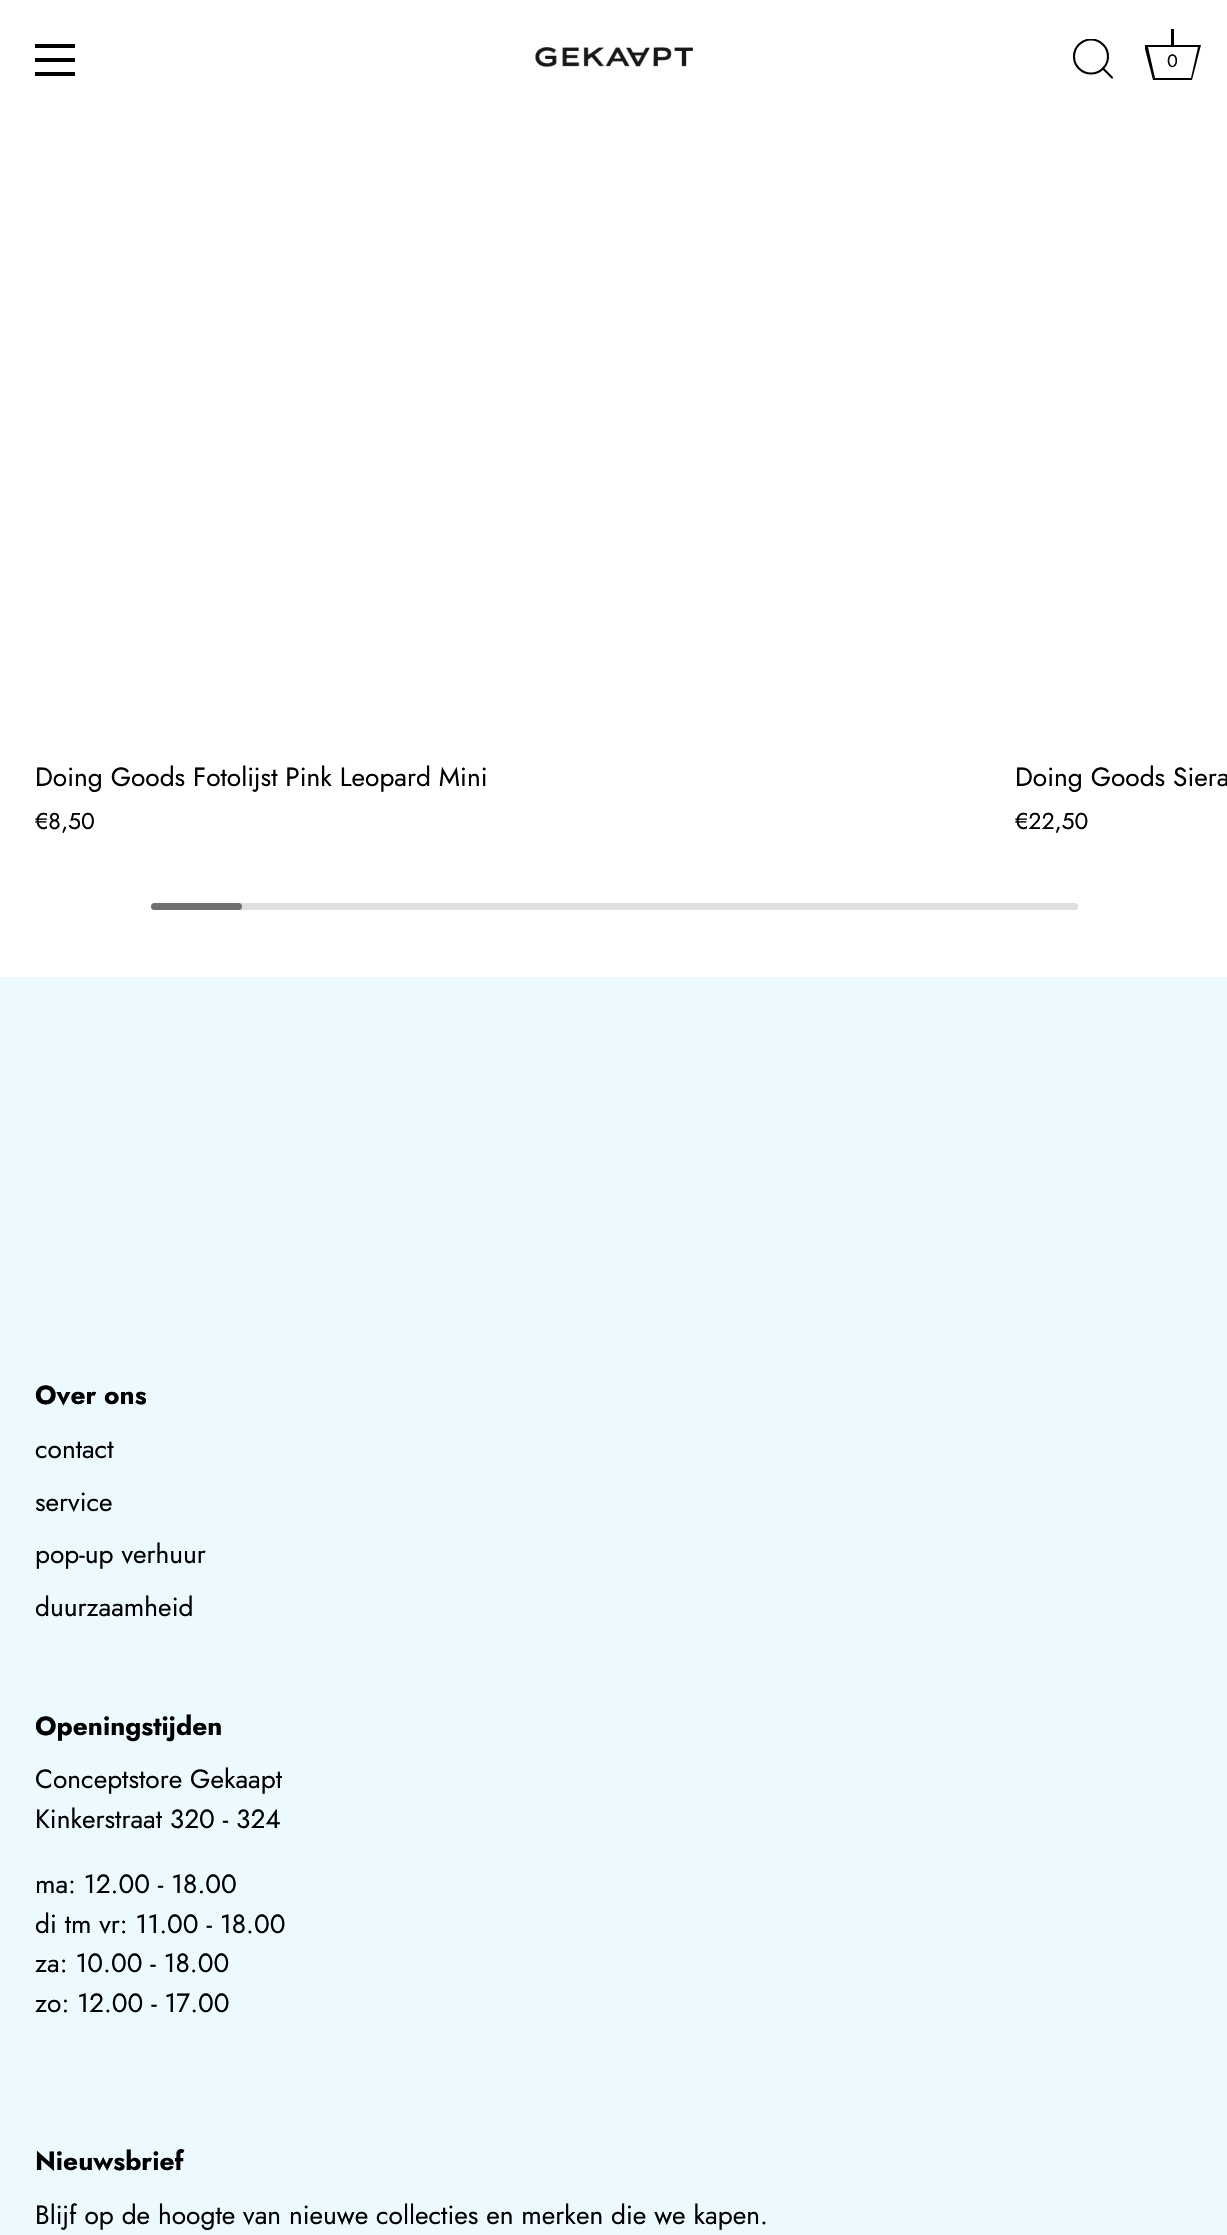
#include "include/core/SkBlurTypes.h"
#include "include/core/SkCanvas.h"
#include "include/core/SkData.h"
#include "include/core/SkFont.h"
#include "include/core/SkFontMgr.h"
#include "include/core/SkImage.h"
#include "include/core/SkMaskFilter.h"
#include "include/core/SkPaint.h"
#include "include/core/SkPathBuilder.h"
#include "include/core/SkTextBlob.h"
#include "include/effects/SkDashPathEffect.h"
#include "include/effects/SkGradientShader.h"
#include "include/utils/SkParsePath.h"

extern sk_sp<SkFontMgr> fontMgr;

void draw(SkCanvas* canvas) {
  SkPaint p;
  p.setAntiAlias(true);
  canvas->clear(SK_ColorWHITE);
  p.setColor(SK_ColorBLACK);
  canvas->drawRect(SkRect::MakeLTRB(35, 44, 75, 48), p);
  canvas->drawRect(SkRect::MakeLTRB(35, 58, 75, 62), p);
  canvas->drawRect(SkRect::MakeLTRB(35, 72, 75, 76), p);
  canvas->drawImageRect(SkImages::DeferredFromEncodedData(SkData::MakeFromFileName("images/1.png")), SkRect::MakeLTRB(535, 47, 693, 67), SkSamplingOptions());
  canvas->save();
  canvas->clipRect(SkRect::MakeLTRB(1073, 39, 1115, 81));
  p.setStyle(SkPaint::kStroke_Style);
  p.setStrokeWidth(2.1f);
  canvas->drawCircle(1091, 56.5f, 17, p);
  canvas->restore();
  p.setStrokeCap(SkPaint::kRound_Cap);
  p.setStrokeJoin(SkPaint::kRound_Join);
  canvas->drawPath(SkPathBuilder().moveTo(1112, 77.5f).lineTo(1103, 68.5f).detach(), p);
  p.setStyle(SkPaint::kFill_Style);
  canvas->drawRect(SkRect::MakeLTRB(1171, 29, 1174, 45), p);
  canvas->save();
  canvas->clipRect(SkRect::MakeLTRB(1145, 26, 1201, 82));
  canvas->drawPath(SkPathBuilder().moveTo(1198, 47).lineTo(1191, 78).lineTo(1155, 78).lineTo(1148, 47).lineTo(1198, 47).moveTo(1201, 45).lineTo(1144, 45).lineTo(1153, 80).lineTo(1192, 80).close().detach(), p);
  canvas->restore();
  p.setColor(SkColorSetRGB(223, 223, 223));
  canvas->drawRoundRect(SkRect::MakeLTRB(151, 903, 1078, 910), 3.5f, 3.5f, p);
  p.setColor(SkColorSetARGB(128, 0, 0, 0));
  canvas->drawRoundRect(SkRect::MakeLTRB(151, 903, 242, 910), 3.5f, 3.5f, p);
  p.setColor(SkColorSetRGB(236, 249, 255));
  canvas->drawRect(SkRect::MakeLTRB(0, 977, 1227, 2235), p);
  SkFont font1(fontMgr->matchFamilyStyle("Jost", SkFontStyle::Normal()), 18);
  font1.setSubpixel(true);
  p.setColor(SK_ColorBLACK);
  canvas->drawString("0", 1167, 67, font1, p);
  SkFont font2(fontMgr->matchFamilyStyle("Jost", SkFontStyle::Normal()), 26.25f);
  font2.setSubpixel(true);
  canvas->drawString("Doing Goods Fotolijst Pink Leopard Mini", 35, 786, font2, p);
  SkFont font3(fontMgr->matchFamilyStyle("Jost", SkFontStyle::Normal()), 23);
  font3.setSubpixel(true);
  canvas->drawString("€8,50", 35, 829, font3, p);
  canvas->drawString("Doing Goods Siera", 1015, 786, font2, p);
  canvas->drawString("€22,50", 1015, 829, font3, p);
  SkFont font4(fontMgr->matchFamilyStyle("Jost", SkFontStyle::Bold()), 26.25f);
  font4.setSubpixel(true);
  canvas->drawString("Over ons", 35, 1404, font4, p);
  canvas->drawString("contact", 35, 1458, font2, p);
  canvas->drawString("service", 35, 1511, font2, p);
  canvas->drawString("pop-up verhuur", 35, 1563, font2, p);
  canvas->drawString("duurzaamheid", 35, 1616, font2, p);
  canvas->drawString("Openingstijden", 35, 1735, font4, p);
  canvas->drawString("Conceptstore Gekaapt", 35, 1788, font2, p);
  canvas->drawString("Kinkerstraat 320 - 324", 35, 1828, font2, p);
  canvas->drawString("ma: 12.00 - 18.00", 35, 1893, font2, p);
  canvas->drawString("di tm vr: 11.00 - 18.00", 35, 1933, font2, p);
  canvas->drawString("za: 10.00 - 18.00", 35, 1972, font2, p);
  canvas->drawString("zo: 12.00 - 17.00", 35, 2012, font2, p);
  canvas->drawString("Nieuwsbrief", 35, 2170, font4, p);
  canvas->drawString("Blijf op de hoogte van nieuwe collecties en merken die we kapen.", 35, 2224, font2, p);
}
